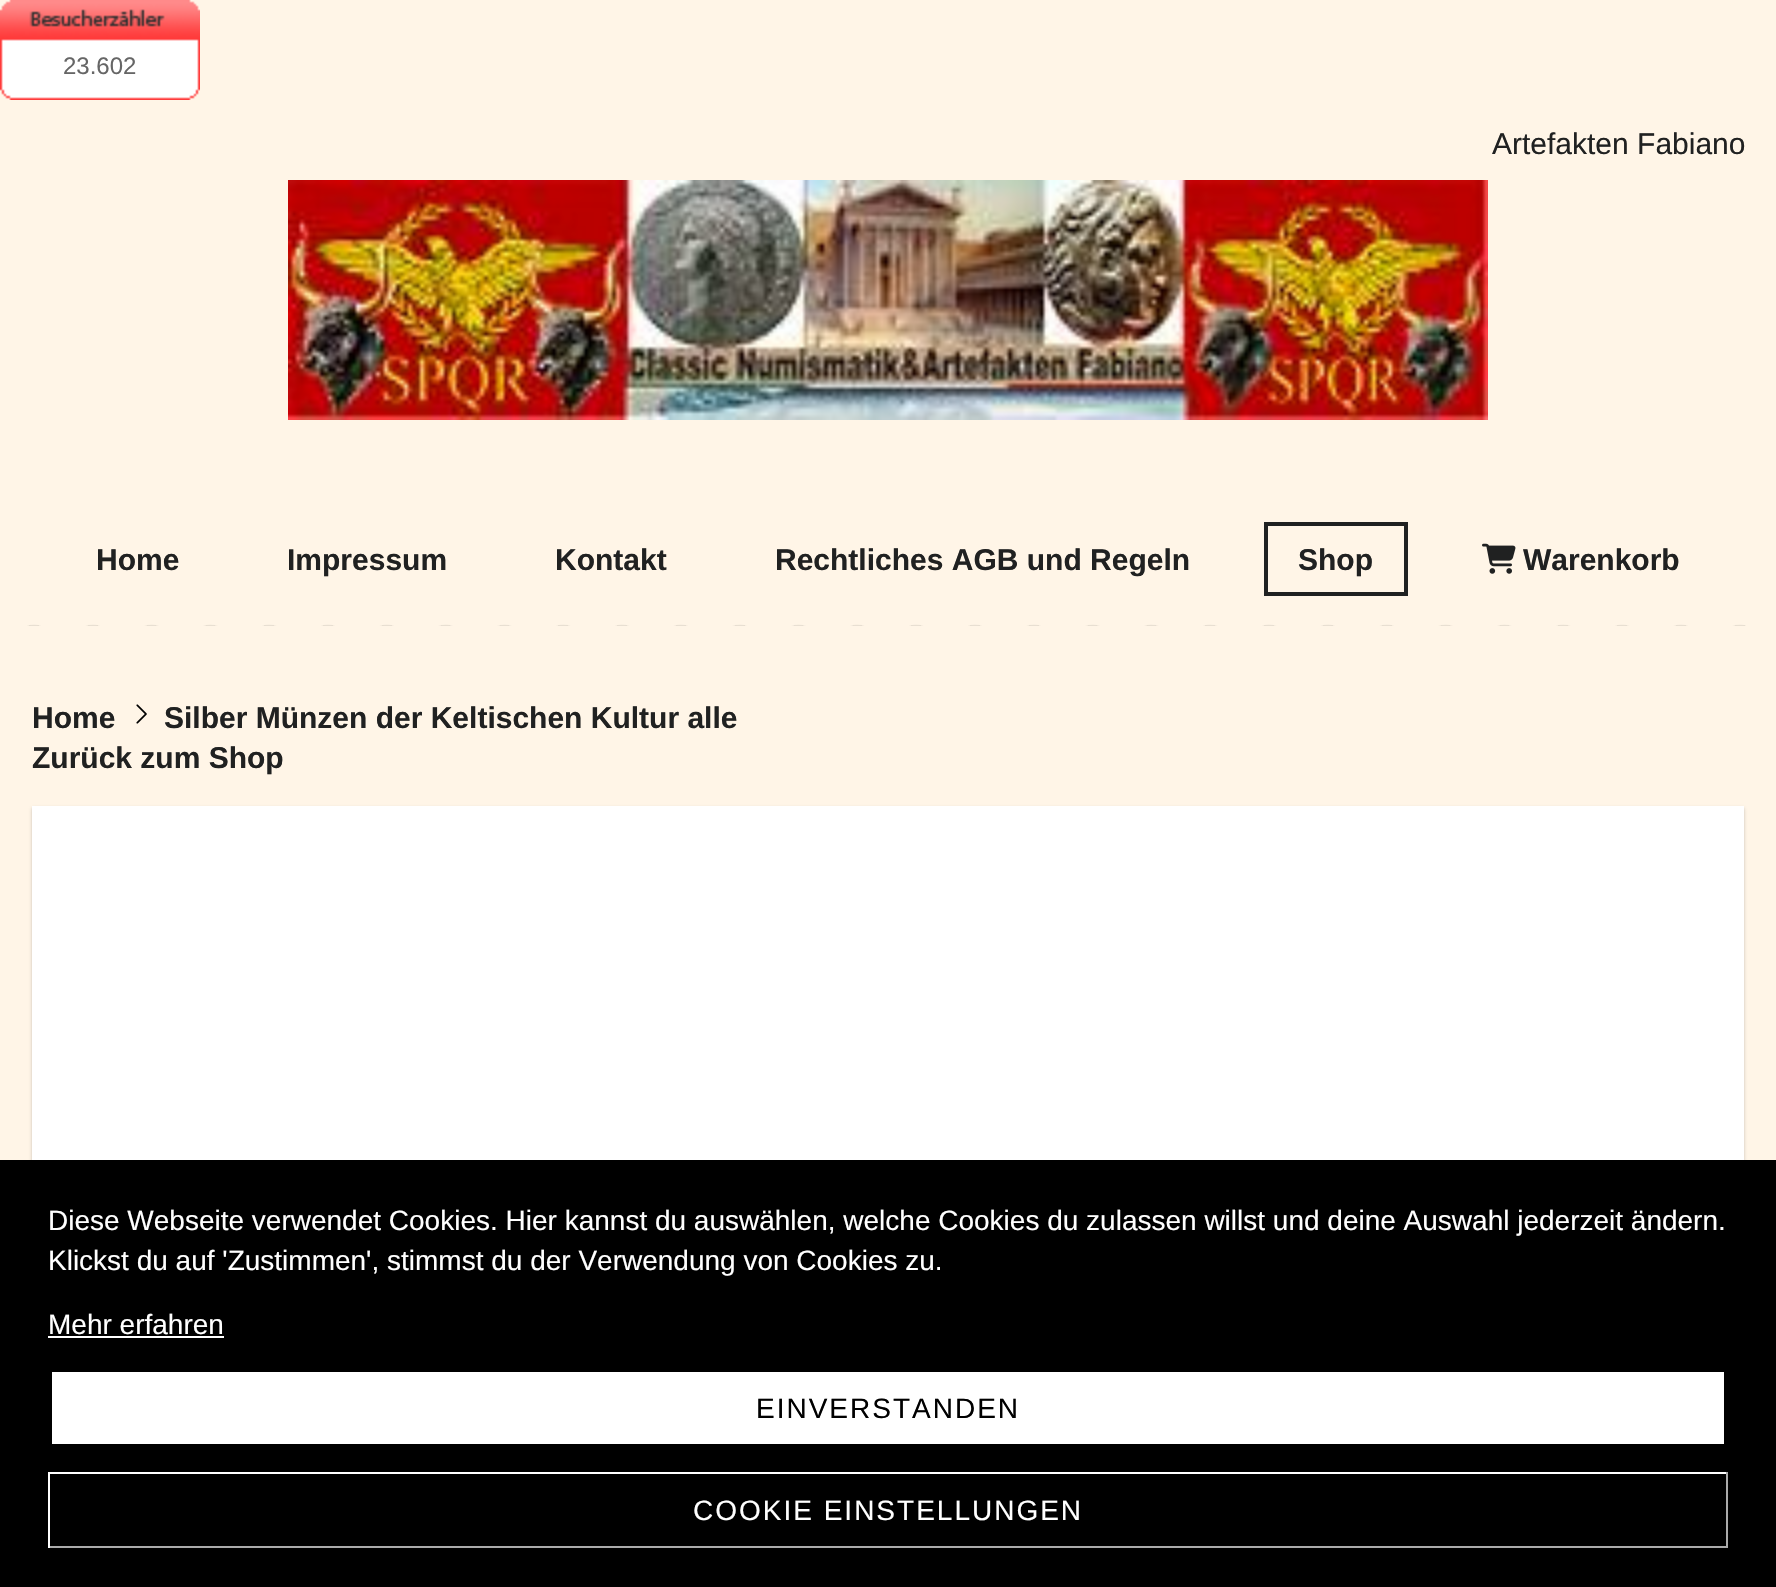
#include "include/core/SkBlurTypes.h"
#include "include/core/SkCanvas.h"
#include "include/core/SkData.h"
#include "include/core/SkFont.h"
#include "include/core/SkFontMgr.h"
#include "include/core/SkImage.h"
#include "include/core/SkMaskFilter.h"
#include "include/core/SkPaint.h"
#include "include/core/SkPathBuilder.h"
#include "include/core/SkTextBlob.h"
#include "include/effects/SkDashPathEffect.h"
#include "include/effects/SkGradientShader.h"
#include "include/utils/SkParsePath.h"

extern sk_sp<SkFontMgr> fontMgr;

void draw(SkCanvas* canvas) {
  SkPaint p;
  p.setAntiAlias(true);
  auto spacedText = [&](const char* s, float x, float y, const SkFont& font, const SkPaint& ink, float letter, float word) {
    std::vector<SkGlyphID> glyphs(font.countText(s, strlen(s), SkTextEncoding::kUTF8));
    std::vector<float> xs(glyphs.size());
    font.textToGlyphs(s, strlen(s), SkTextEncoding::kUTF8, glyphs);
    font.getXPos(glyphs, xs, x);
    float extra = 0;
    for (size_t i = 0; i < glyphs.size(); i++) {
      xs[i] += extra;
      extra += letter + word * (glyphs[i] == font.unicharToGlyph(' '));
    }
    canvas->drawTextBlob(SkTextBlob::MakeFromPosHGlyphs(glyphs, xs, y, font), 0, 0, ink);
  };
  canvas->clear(SkColorSetRGB(255, 245, 231));
  canvas->drawImageRect(SkImages::DeferredFromEncodedData(SkData::MakeFromFileName("images/1.png")), SkRect::MakeLTRB(0, 0, 200, 100), SkSamplingOptions());
  canvas->drawImageRect(SkImages::DeferredFromEncodedData(SkData::MakeFromFileName("images/2.png")), SkRect::MakeLTRB(288, 180, 1488, 420), SkSamplingOptions());
  p.setStyle(SkPaint::kStroke_Style);
  p.setStrokeWidth(4);
  p.setColor(SkColorSetRGB(32, 33, 33));
  canvas->drawRect(SkRect::MakeLTRB(1266, 524, 1406, 594), p);
  canvas->drawImageRect(SkImages::DeferredFromEncodedData(SkData::MakeFromFileName("images/3.png")), SkRect::MakeLTRB(1482, 543, 1516, 574), SkSamplingOptions());
  canvas->drawImageRect(SkImages::DeferredFromEncodedData(SkData::MakeFromFileName("images/4.png")), SkRect::MakeLTRB(27, 624, 1746, 626), SkSamplingOptions());
  canvas->drawImageRect(SkImages::DeferredFromEncodedData(SkData::MakeFromFileName("images/5.png")), SkRect::MakeLTRB(136, 704, 147, 724), SkSamplingOptions());
  p.setStyle(SkPaint::kFill_Style);
  p.setColor(SkColorSetARGB(26, 30, 19, 12));
  p.setMaskFilter(SkMaskFilter::MakeBlur(kNormal_SkBlurStyle, 1));
  canvas->drawRect(SkRect::MakeLTRB(32, 808, 1744, 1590), p);
  p.setMaskFilter(nullptr);
  p.setColor(SkColorSetARGB(38, 30, 19, 12));
  p.setMaskFilter(SkMaskFilter::MakeBlur(kNormal_SkBlurStyle, 2));
  canvas->drawRect(SkRect::MakeLTRB(32, 808, 1744, 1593), p);
  p.setMaskFilter(nullptr);
  p.setColor(SK_ColorWHITE);
  canvas->drawRect(SkRect::MakeLTRB(32, 806, 1744, 1160), p);
  p.setColor(SK_ColorBLACK);
  canvas->drawRect(SkRect::MakeLTRB(0, 1160, 1776, 1587), p);
  p.setColor(SK_ColorWHITE);
  canvas->drawRect(SkRect::MakeLTRB(48, 1336, 224, 1338), p);
  canvas->drawRect(SkRect::MakeLTRB(52, 1372, 1724, 1444), p);
  canvas->drawRect(SkRect::MakeLTRB(48, 1472, 1728, 1474), p);
  p.setColor(SkColorSetRGB(170, 170, 170));
  canvas->drawRect(SkRect::MakeLTRB(1726, 1472, 1728, 1548), p);
  canvas->drawRect(SkRect::MakeLTRB(48, 1546, 1728, 1548), p);
  p.setColor(SK_ColorWHITE);
  canvas->drawRect(SkRect::MakeLTRB(48, 1472, 50, 1548), p);
  SkFont font1(fontMgr->matchFamilyStyle("Liberation Sans", SkFontStyle::Normal()), 24);
  font1.setSubpixel(true);
  p.setColor(SkColorSetRGB(102, 102, 102));
  canvas->drawString("23.602", 63, 74, font1, p);
  SkFont font2(fontMgr->matchFamilyStyle("Liberation Sans", SkFontStyle::Normal()), 30);
  font2.setSubpixel(true);
  p.setColor(SkColorSetRGB(32, 33, 33));
  canvas->drawString("Artefakten Fabiano", 1492, 154, font2, p);
  SkFont font3(fontMgr->matchFamilyStyle("Liberation Sans", SkFontStyle::Bold()), 30);
  font3.setSubpixel(true);
  canvas->drawString("Home", 96, 570, font3, p);
  canvas->drawString("Impressum", 287, 570, font3, p);
  canvas->drawString("Kontakt", 555, 570, font3, p);
  canvas->drawString("Rechtliches AGB und Regeln", 775, 570, font3, p);
  canvas->drawString("Shop", 1298, 570, font3, p);
  canvas->drawString("Warenkorb", 1523, 570, font3, p);
  canvas->drawString("Home", 32, 728, font3, p);
  canvas->drawString("Silber Münzen der Keltischen Kultur alle", 164, 728, font3, p);
  canvas->drawString("Zurück zum Shop", 32, 768, font3, p);
  SkFont font4(fontMgr->matchFamilyStyle("Liberation Sans", SkFontStyle::Normal()), 28);
  font4.setSubpixel(true);
  p.setColor(SK_ColorWHITE);
  canvas->drawString("Diese Webseite verwendet Cookies. Hier kannst du auswählen, welche Cookies du zulassen willst und deine Auswahl jederzeit ändern.", 48, 1230, font4, p);
  canvas->drawString("Klickst du auf 'Zustimmen', stimmst du der Verwendung von Cookies zu.", 48, 1270, font4, p);
  canvas->drawString("Mehr erfahren", 48, 1334, font4, p);
  p.setColor(SK_ColorBLACK);
  spacedText("EINVERSTANDEN", 756, 1418, font4, p, 2, 0);
  p.setColor(SK_ColorWHITE);
  spacedText("COOKIE EINSTELLUNGEN", 693, 1520, font4, p, 2, 0);
}
